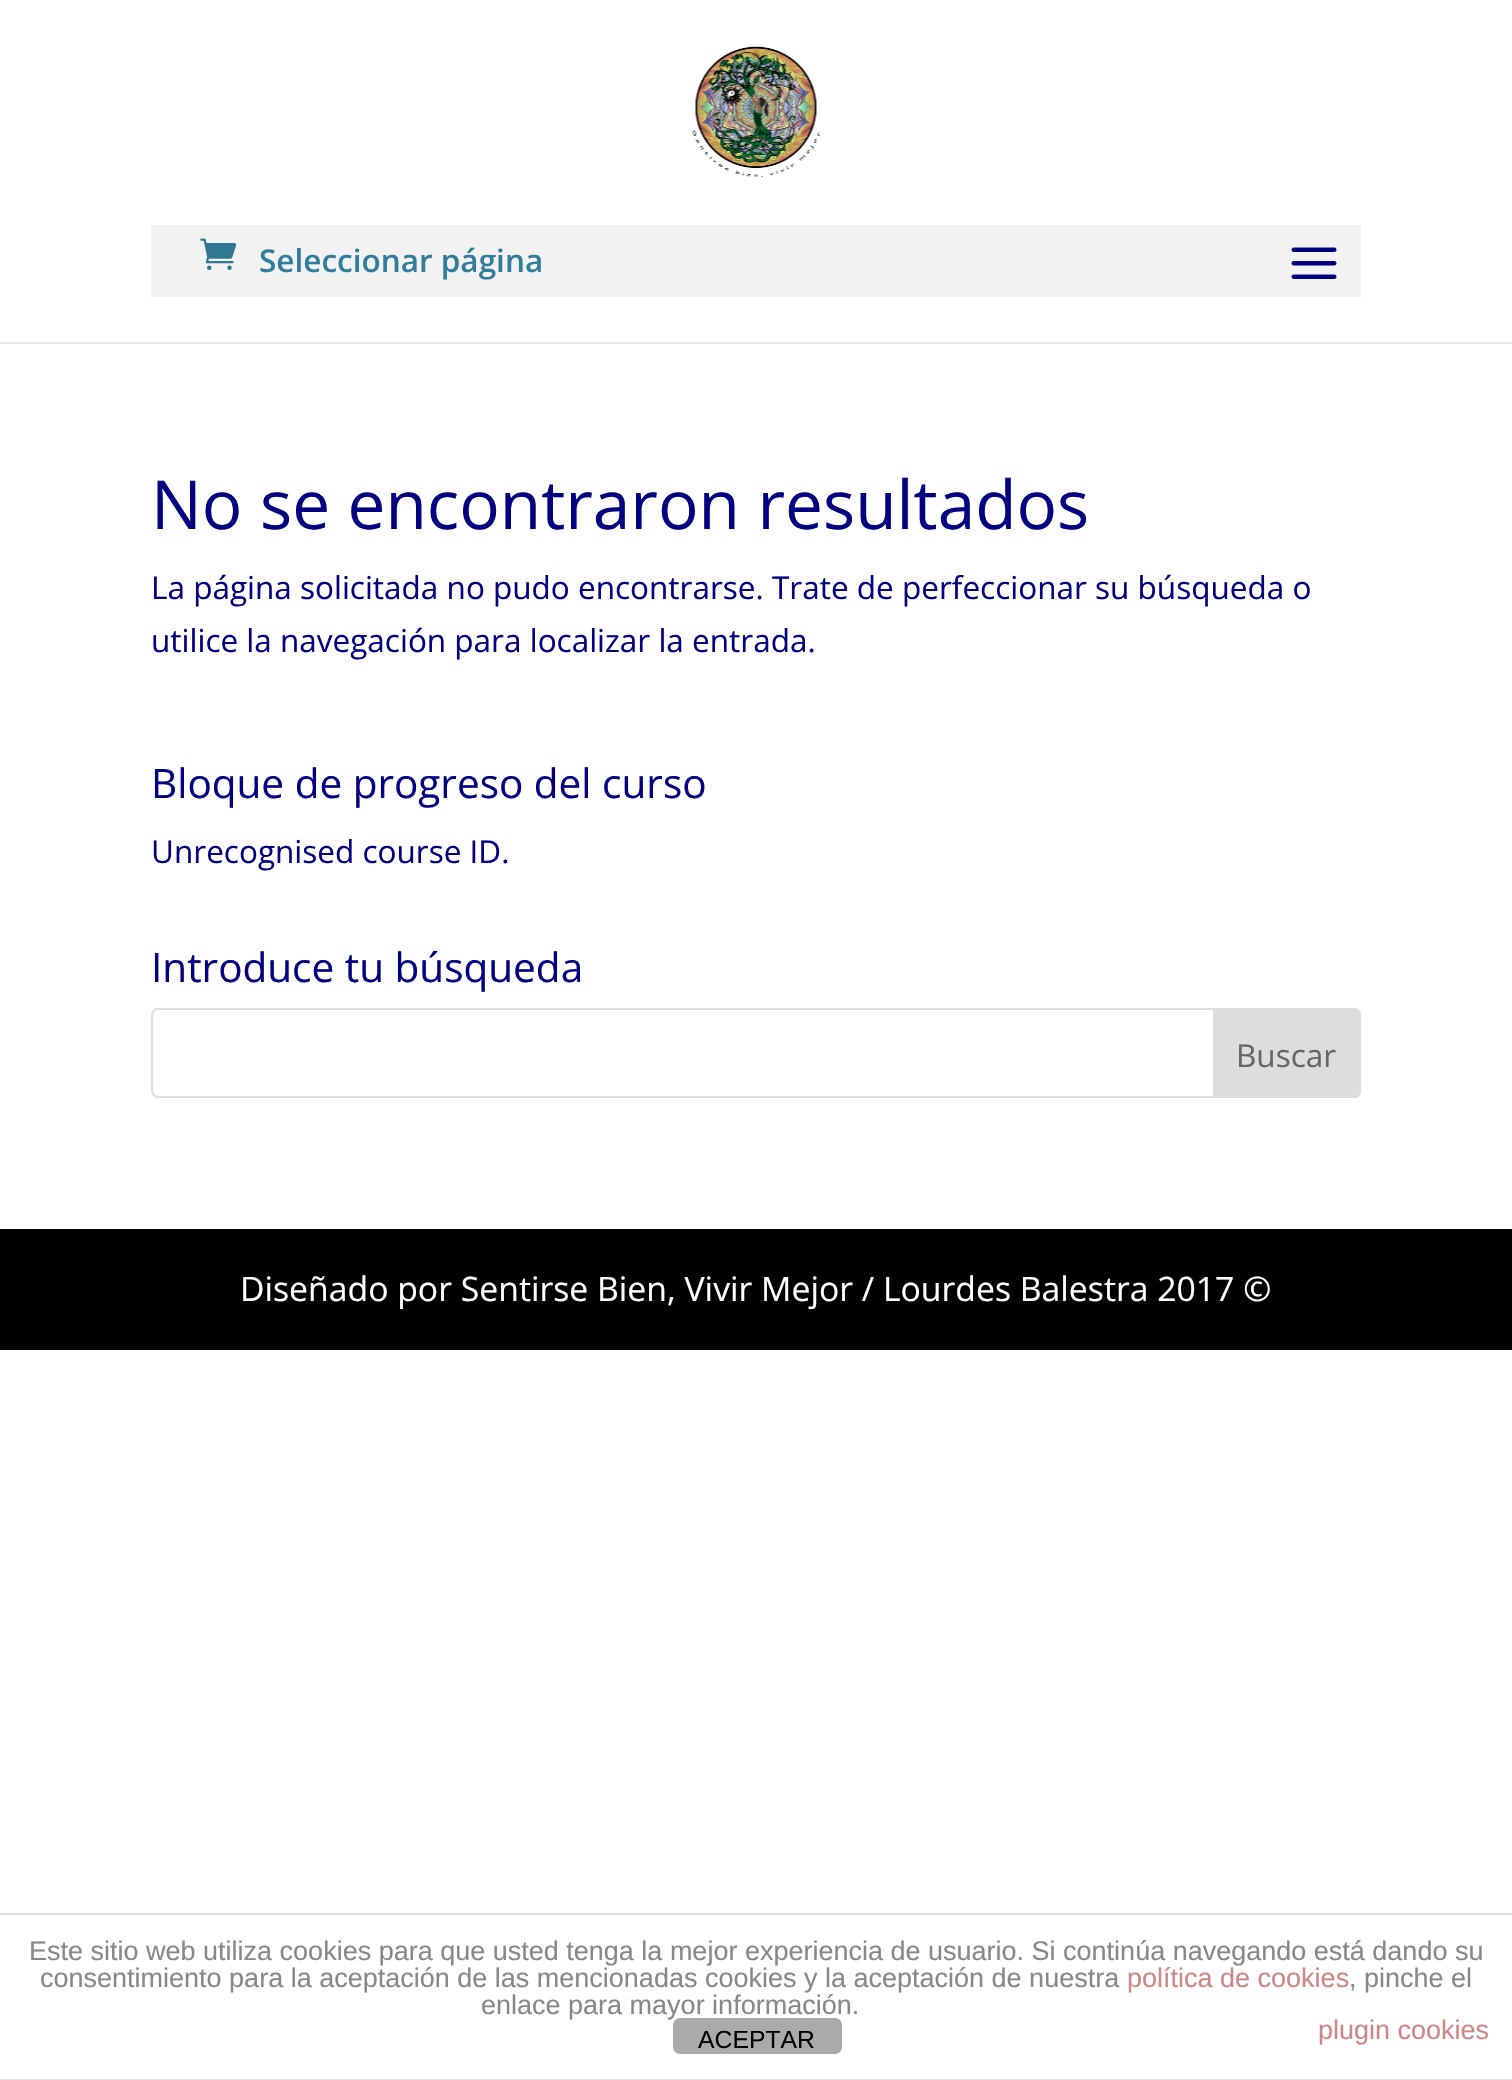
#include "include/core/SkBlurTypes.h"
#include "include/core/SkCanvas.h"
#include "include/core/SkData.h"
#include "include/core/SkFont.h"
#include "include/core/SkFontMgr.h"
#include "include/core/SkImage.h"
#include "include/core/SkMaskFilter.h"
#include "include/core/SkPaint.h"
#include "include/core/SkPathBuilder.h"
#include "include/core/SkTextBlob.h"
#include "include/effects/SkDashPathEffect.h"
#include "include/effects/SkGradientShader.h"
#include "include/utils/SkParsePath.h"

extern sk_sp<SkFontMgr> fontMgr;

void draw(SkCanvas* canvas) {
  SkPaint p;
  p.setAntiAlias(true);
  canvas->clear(SK_ColorWHITE);
  p.setColor(SkColorSetRGB(230, 230, 230));
  canvas->drawRect(SkRect::MakeLTRB(0, 342, 1512, 344), p);
  canvas->drawImageRect(SkImages::DeferredFromEncodedData(SkData::MakeFromFileName("images/1.png")), SkRect::MakeLTRB(691, 46, 820, 177), SkSamplingOptions());
  canvas->drawImageRect(SkImages::DeferredFromEncodedData(SkData::MakeFromFileName("images/2.png")), SkRect::MakeLTRB(200, 238, 237, 270), SkSamplingOptions());
  p.setColor(SkColorSetARGB(13, 0, 0, 0));
  canvas->drawRect(SkRect::MakeLTRB(151, 225, 1361, 297), p);
  canvas->drawImageRect(SkImages::DeferredFromEncodedData(SkData::MakeFromFileName("images/3.png")), SkRect::MakeLTRB(1291, 247, 1337, 279), SkSamplingOptions());
  p.setStyle(SkPaint::kStroke_Style);
  p.setStrokeWidth(2);
  p.setColor(SkColorSetRGB(221, 221, 221));
  canvas->drawRoundRect(SkRect::MakeLTRB(152, 1009, 1360, 1097), 6, 6, p);
  p.setStyle(SkPaint::kFill_Style);
  canvas->drawPath(SkPathBuilder().moveTo(1214, 1009).lineTo(1354, 1009).cubicTo(1357.5f, 1009, 1360, 1011.5f, 1360, 1015).lineTo(1360, 1091).cubicTo(1360, 1094.5f, 1357.5f, 1097, 1354, 1097).lineTo(1214, 1097).close().detach(), p);
  p.setStyle(SkPaint::kStroke_Style);
  canvas->drawPath(SkPathBuilder().moveTo(1214, 1009).lineTo(1354, 1009).cubicTo(1357.5f, 1009, 1360, 1011.5f, 1360, 1015).lineTo(1360, 1091).cubicTo(1360, 1094.5f, 1357.5f, 1097, 1354, 1097).lineTo(1214, 1097).close().detach(), p);
  p.setStyle(SkPaint::kFill_Style);
  p.setColor(SK_ColorBLACK);
  canvas->drawRect(SkRect::MakeLTRB(0, 1229, 1512, 1350), p);
  p.setColor(SkColorSetRGB(221, 221, 221));
  canvas->drawRect(SkRect::MakeLTRB(0, 1913, 1512, 1915), p);
  canvas->drawRect(SkRect::MakeLTRB(0, 2079, 1512, 2080), p);
  p.setColor(SkColorSetRGB(170, 170, 170));
  canvas->drawRoundRect(SkRect::MakeLTRB(673, 2018, 842, 2054), 7, 7, p);
  SkFont font1(fontMgr->matchFamilyStyle("Open Sans", SkFontStyle(600, SkFontStyle::kNormal_Width, SkFontStyle::kUpright_Slant)), 31.5f);
  font1.setSubpixel(true);
  p.setColor(SkColorSetRGB(48, 126, 156));
  canvas->drawString("Seleccionar página", 259, 272, font1, p);
  SkFont font2(fontMgr->matchFamilyStyle("Open Sans", SkFontStyle::Normal()), 67.5f);
  font2.setSubpixel(true);
  p.setColor(SkColorSetRGB(0, 0, 128));
  canvas->drawString("No se encontraron resultados", 151, 529, font2, p);
  SkFont font3(fontMgr->matchFamilyStyle("Open Sans", SkFontStyle::Normal()), 31.5f);
  font3.setSubpixel(true);
  canvas->drawString("La página solicitada no pudo encontrarse. Trate de perfeccionar su búsqueda o", 151, 599, font3, p);
  canvas->drawString("utilice la navegación para localizar la entrada.", 151, 652, font3, p);
  SkFont font4(fontMgr->matchFamilyStyle("Open Sans", SkFontStyle::Normal()), 40.5f);
  font4.setSubpixel(true);
  canvas->drawString("Bloque de progreso del curso", 151, 798, font4, p);
  canvas->drawString("Unrecognised course ID.", 151, 863, font3, p);
  canvas->drawString("Introduce tu búsqueda", 151, 982, font4, p);
  p.setColor(SkColorSetRGB(102, 102, 102));
  canvas->drawString("Buscar", 1236, 1067, font3, p);
  SkFont font5(fontMgr->matchFamilyStyle("Open Sans", SkFontStyle::Normal()), 33.75f);
  font5.setSubpixel(true);
  p.setColor(SK_ColorWHITE);
  canvas->drawString("Diseñado por Sentirse Bien, Vivir Mejor / Lourdes Balestra 2017 ©", 240, 1301, font5, p);
  SkFont font6(fontMgr->matchFamilyStyle("Liberation Sans", SkFontStyle::Normal()), 27);
  font6.setSubpixel(true);
  p.setColor(SkColorSetRGB(136, 136, 136));
  canvas->drawString("Este sitio web utiliza cookies para que usted tenga la mejor experiencia de usuario. Si continúa navegando está dando su", 29, 1960, font6, p);
  canvas->drawString("consentimiento para la aceptación de las mencionadas cookies y la aceptación de nuestra", 40, 1987, font6, p);
  p.setColor(SkColorSetRGB(204, 136, 136));
  canvas->drawString("política de cookies", 1127, 1987, font6, p);
  p.setColor(SkColorSetRGB(136, 136, 136));
  canvas->drawString(", pinche el", 1349, 1987, font6, p);
  canvas->drawString("enlace para mayor información.", 481, 2014, font6, p);
  p.setColor(SkColorSetRGB(204, 136, 136));
  canvas->drawString("plugin cookies", 1318, 2039, font6, p);
  SkFont font7(fontMgr->matchFamilyStyle("Liberation Sans", SkFontStyle::Normal()), 24.75f);
  font7.setSubpixel(true);
  p.setColor(SK_ColorBLACK);
  canvas->drawString("ACEPTAR", 698, 2048, font7, p);
}
